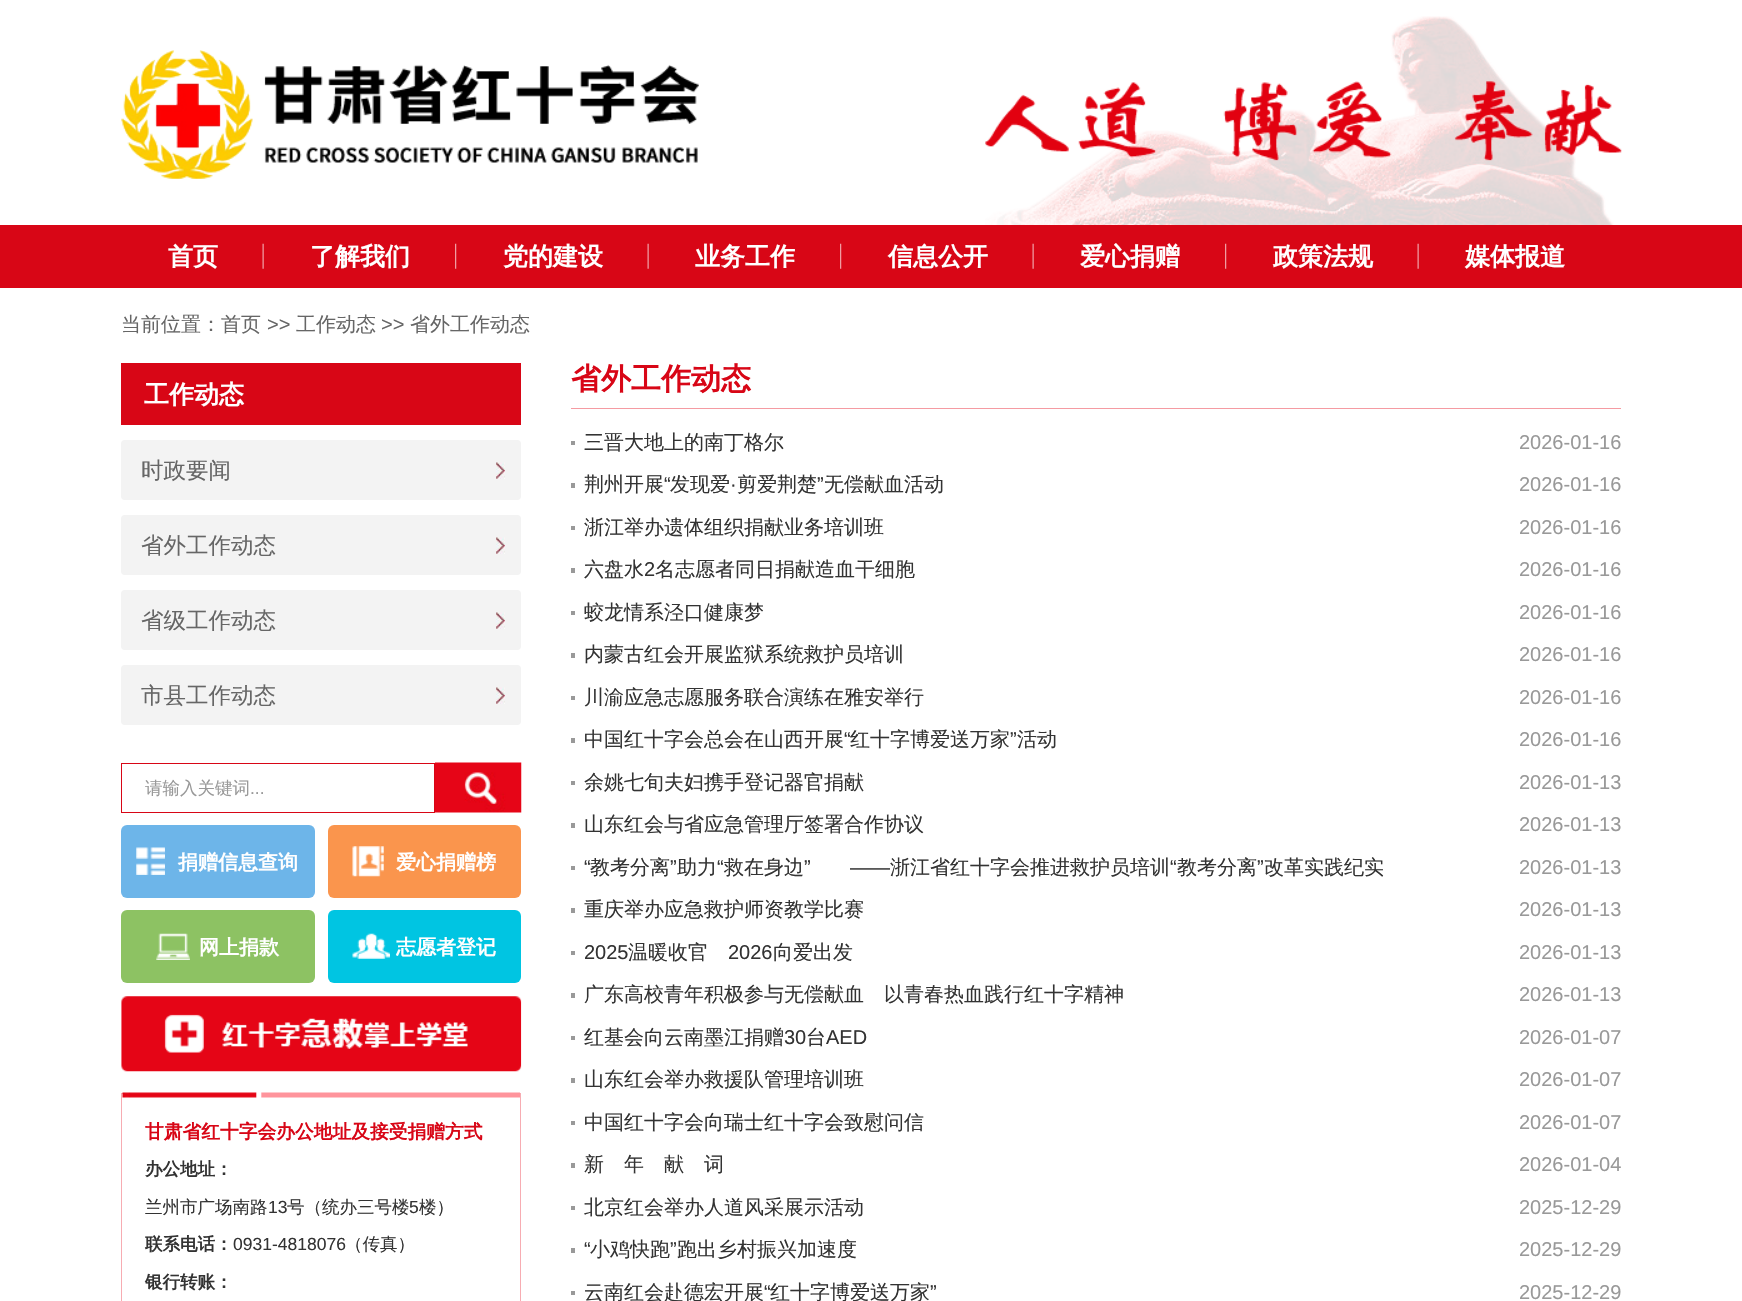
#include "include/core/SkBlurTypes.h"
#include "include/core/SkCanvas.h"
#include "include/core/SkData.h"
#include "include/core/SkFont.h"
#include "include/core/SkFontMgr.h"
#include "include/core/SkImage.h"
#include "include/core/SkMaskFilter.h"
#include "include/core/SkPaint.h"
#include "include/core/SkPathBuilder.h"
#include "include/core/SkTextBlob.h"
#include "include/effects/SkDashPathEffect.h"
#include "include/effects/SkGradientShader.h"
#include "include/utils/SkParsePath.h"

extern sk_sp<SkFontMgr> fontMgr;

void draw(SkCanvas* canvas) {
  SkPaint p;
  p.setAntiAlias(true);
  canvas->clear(SK_ColorWHITE);
  canvas->drawImageRect(SkImages::DeferredFromEncodedData(SkData::MakeFromFileName("images/1.png")), SkRect::MakeLTRB(985, 16, 1622, 225), SkSamplingOptions());
  canvas->drawImageRect(SkImages::DeferredFromEncodedData(SkData::MakeFromFileName("images/2.png")), SkRect::MakeLTRB(121, 50, 699, 179), SkSamplingOptions());
  p.setColor(SkColorSetRGB(216, 6, 22));
  canvas->drawRect(SkRect::MakeLTRB(0, 225, 1742, 288), p);
  canvas->drawImageRect(SkImages::DeferredFromEncodedData(SkData::MakeFromFileName("images/3.png")), SkRect::MakeLTRB(262, 243, 264, 269), SkSamplingOptions());
  canvas->drawImageRect(SkImages::DeferredFromEncodedData(SkData::MakeFromFileName("images/4.png")), SkRect::MakeLTRB(455, 243, 457, 269), SkSamplingOptions());
  canvas->drawImageRect(SkImages::DeferredFromEncodedData(SkData::MakeFromFileName("images/3.png")), SkRect::MakeLTRB(647, 243, 649, 269), SkSamplingOptions());
  canvas->drawImageRect(SkImages::DeferredFromEncodedData(SkData::MakeFromFileName("images/4.png")), SkRect::MakeLTRB(840, 243, 842, 269), SkSamplingOptions());
  canvas->drawImageRect(SkImages::DeferredFromEncodedData(SkData::MakeFromFileName("images/3.png")), SkRect::MakeLTRB(1032, 243, 1034, 269), SkSamplingOptions());
  canvas->drawImageRect(SkImages::DeferredFromEncodedData(SkData::MakeFromFileName("images/4.png")), SkRect::MakeLTRB(1225, 243, 1227, 269), SkSamplingOptions());
  canvas->drawImageRect(SkImages::DeferredFromEncodedData(SkData::MakeFromFileName("images/3.png")), SkRect::MakeLTRB(1417, 243, 1419, 269), SkSamplingOptions());
  canvas->drawRect(SkRect::MakeLTRB(121, 363, 521, 425), p);
  p.setColor(SkColorSetRGB(243, 243, 243));
  canvas->drawRoundRect(SkRect::MakeLTRB(121, 440, 521, 500), 4, 4, p);
  canvas->drawImageRect(SkImages::DeferredFromEncodedData(SkData::MakeFromFileName("images/5.png")), SkRect::MakeLTRB(496, 462, 505, 479), SkSamplingOptions());
  canvas->drawRoundRect(SkRect::MakeLTRB(121, 515, 521, 575), 4, 4, p);
  canvas->drawImageRect(SkImages::DeferredFromEncodedData(SkData::MakeFromFileName("images/5.png")), SkRect::MakeLTRB(496, 537, 505, 554), SkSamplingOptions());
  canvas->drawRoundRect(SkRect::MakeLTRB(121, 590, 521, 650), 4, 4, p);
  canvas->drawImageRect(SkImages::DeferredFromEncodedData(SkData::MakeFromFileName("images/5.png")), SkRect::MakeLTRB(496, 612, 505, 629), SkSamplingOptions());
  canvas->drawRoundRect(SkRect::MakeLTRB(121, 665, 521, 725), 4, 4, p);
  canvas->drawImageRect(SkImages::DeferredFromEncodedData(SkData::MakeFromFileName("images/5.png")), SkRect::MakeLTRB(496, 687, 505, 704), SkSamplingOptions());
  p.setStyle(SkPaint::kStroke_Style);
  p.setStrokeWidth(1);
  p.setColor(SkColorSetRGB(216, 6, 22));
  canvas->drawRect(SkRect::MakeLTRB(121.5f, 763.5f, 434.5f, 812.5f), p);
  canvas->drawImageRect(SkImages::DeferredFromEncodedData(SkData::MakeFromFileName("images/6.png")), SkRect::MakeLTRB(435, 762, 522, 813), SkSamplingOptions());
  p.setStyle(SkPaint::kFill_Style);
  p.setColor(SkColorSetRGB(109, 181, 233));
  canvas->drawRoundRect(SkRect::MakeLTRB(121, 825, 315, 898), 6, 6, p);
  canvas->drawImageRect(SkImages::DeferredFromEncodedData(SkData::MakeFromFileName("images/7.png")), SkRect::MakeLTRB(136, 847, 165, 875), SkSamplingOptions());
  p.setColor(SkColorSetRGB(250, 149, 77));
  canvas->drawRoundRect(SkRect::MakeLTRB(328, 825, 521, 898), 6, 6, p);
  canvas->drawImageRect(SkImages::DeferredFromEncodedData(SkData::MakeFromFileName("images/8.png")), SkRect::MakeLTRB(352, 846, 384, 877), SkSamplingOptions());
  p.setColor(SkColorSetRGB(141, 194, 99));
  canvas->drawRoundRect(SkRect::MakeLTRB(121, 910, 315, 983), 6, 6, p);
  canvas->drawImageRect(SkImages::DeferredFromEncodedData(SkData::MakeFromFileName("images/9.png")), SkRect::MakeLTRB(156, 933, 190, 960), SkSamplingOptions());
  p.setColor(SkColorSetRGB(0, 197, 226));
  canvas->drawRoundRect(SkRect::MakeLTRB(328, 910, 521, 983), 6, 6, p);
  canvas->drawImageRect(SkImages::DeferredFromEncodedData(SkData::MakeFromFileName("images/10.png")), SkRect::MakeLTRB(352, 933, 390, 959), SkSamplingOptions());
  canvas->drawImageRect(SkImages::DeferredFromEncodedData(SkData::MakeFromFileName("images/11.png")), SkRect::MakeLTRB(121, 996, 522, 1072), SkSamplingOptions());
  p.setStyle(SkPaint::kStroke_Style);
  p.setColor(SkColorSetRGB(247, 172, 178));
  canvas->drawRect(SkRect::MakeLTRB(121.5f, 1093.5f, 520.5f, 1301.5f), p);
  p.setStyle(SkPaint::kFill_Style);
  p.setColor(SK_ColorWHITE);
  canvas->drawRect(SkRect::MakeLTRB(123, 1093, 520, 1094), p);
  canvas->drawImageRect(SkImages::DeferredFromEncodedData(SkData::MakeFromFileName("images/12.png")), SkRect::MakeLTRB(122, 1092, 520, 1098), SkSamplingOptions());
  p.setColor(SkColorSetRGB(245, 155, 162));
  canvas->drawRect(SkRect::MakeLTRB(571, 408, 1621, 409), p);
  p.setColor(SkColorSetRGB(153, 153, 153));
  canvas->drawRect(SkRect::MakeLTRB(571, 441, 575, 445), p);
  canvas->drawRect(SkRect::MakeLTRB(571, 483, 575, 488), p);
  canvas->drawRect(SkRect::MakeLTRB(571, 526, 575, 530), p);
  canvas->drawRect(SkRect::MakeLTRB(571, 568, 575, 573), p);
  canvas->drawRect(SkRect::MakeLTRB(571, 611, 575, 615), p);
  canvas->drawRect(SkRect::MakeLTRB(571, 653, 575, 658), p);
  canvas->drawRect(SkRect::MakeLTRB(571, 696, 575, 700), p);
  canvas->drawRect(SkRect::MakeLTRB(571, 738, 575, 743), p);
  canvas->drawRect(SkRect::MakeLTRB(571, 781, 575, 785), p);
  canvas->drawRect(SkRect::MakeLTRB(571, 823, 575, 828), p);
  canvas->drawRect(SkRect::MakeLTRB(571, 866, 575, 870), p);
  canvas->drawRect(SkRect::MakeLTRB(571, 908, 575, 913), p);
  canvas->drawRect(SkRect::MakeLTRB(571, 951, 575, 955), p);
  canvas->drawRect(SkRect::MakeLTRB(571, 993, 575, 998), p);
  canvas->drawRect(SkRect::MakeLTRB(571, 1036, 575, 1040), p);
  canvas->drawRect(SkRect::MakeLTRB(571, 1078, 575, 1083), p);
  canvas->drawRect(SkRect::MakeLTRB(571, 1121, 575, 1125), p);
  canvas->drawRect(SkRect::MakeLTRB(571, 1163, 575, 1168), p);
  canvas->drawRect(SkRect::MakeLTRB(571, 1206, 575, 1210), p);
  canvas->drawRect(SkRect::MakeLTRB(571, 1248, 575, 1253), p);
  canvas->drawRect(SkRect::MakeLTRB(571, 1291, 575, 1295), p);
  SkFont font1(fontMgr->matchFamilyStyle("WenQuanYi Zen Hei", SkFontStyle::Bold()), 25);
  font1.setSubpixel(true);
  p.setColor(SK_ColorWHITE);
  canvas->drawString("首页", 168, 265, font1, p);
  canvas->drawString("了解我们", 310, 265, font1, p);
  canvas->drawString("党的建设", 503, 265, font1, p);
  canvas->drawString("业务工作", 695, 265, font1, p);
  canvas->drawString("信息公开", 888, 265, font1, p);
  canvas->drawString("爱心捐赠", 1080, 265, font1, p);
  canvas->drawString("政策法规", 1273, 265, font1, p);
  canvas->drawString("媒体报道", 1465, 265, font1, p);
  SkFont font2(fontMgr->matchFamilyStyle("WenQuanYi Zen Hei", SkFontStyle(500, SkFontStyle::kNormal_Width, SkFontStyle::kUpright_Slant)), 20);
  font2.setSubpixel(true);
  p.setColor(SkColorSetRGB(102, 102, 102));
  canvas->drawString("当前位置：首页", 121, 331, font2, p);
  SkFont font3(fontMgr->matchFamilyStyle("Liberation Sans", SkFontStyle::Normal()), 20);
  font3.setSubpixel(true);
  canvas->drawString(">>", 267, 331, font3, p);
  canvas->drawString("工作动态", 296, 331, font2, p);
  canvas->drawString(">>", 381, 331, font3, p);
  canvas->drawString("省外工作动态", 410, 331, font2, p);
  p.setColor(SK_ColorWHITE);
  canvas->drawString("工作动态", 144, 403, font1, p);
  SkFont font4(fontMgr->matchFamilyStyle("WenQuanYi Zen Hei", SkFontStyle(500, SkFontStyle::kNormal_Width, SkFontStyle::kUpright_Slant)), 22.5f);
  font4.setSubpixel(true);
  p.setColor(SkColorSetRGB(102, 102, 102));
  canvas->drawString("时政要闻", 141, 478, font4, p);
  canvas->drawString("省外工作动态", 141, 553, font4, p);
  canvas->drawString("省级工作动态", 141, 628, font4, p);
  canvas->drawString("市县工作动态", 141, 703, font4, p);
  SkFont font5(fontMgr->matchFamilyStyle("WenQuanYi Zen Hei", SkFontStyle(500, SkFontStyle::kNormal_Width, SkFontStyle::kUpright_Slant)), 17.5f);
  font5.setSubpixel(true);
  p.setColor(SkColorSetRGB(153, 153, 153));
  canvas->drawString("请输入关键词", 145, 794, font5, p);
  SkFont font6(fontMgr->matchFamilyStyle("Liberation Sans", SkFontStyle::Normal()), 17.5f);
  font6.setSubpixel(true);
  canvas->drawString("...", 250, 794, font6, p);
  SkFont font7(fontMgr->matchFamilyStyle("WenQuanYi Zen Hei", SkFontStyle::Bold()), 20);
  font7.setSubpixel(true);
  p.setColor(SK_ColorWHITE);
  canvas->drawString("捐赠信息查询", 178, 869, font7, p);
  canvas->drawString("爱心捐赠榜", 396, 869, font7, p);
  canvas->drawString("网上捐款", 199, 954, font7, p);
  canvas->drawString("志愿者登记", 396, 954, font7, p);
  SkFont font8(fontMgr->matchFamilyStyle("WenQuanYi Zen Hei", SkFontStyle::Bold()), 18.75f);
  font8.setSubpixel(true);
  p.setColor(SkColorSetRGB(216, 6, 22));
  canvas->drawString("甘肃省红十字会办公地址及接受捐赠方式", 145, 1138, font8, p);
  SkFont font9(fontMgr->matchFamilyStyle("WenQuanYi Zen Hei", SkFontStyle::Bold()), 17.5f);
  font9.setSubpixel(true);
  p.setColor(SkColorSetRGB(51, 51, 51));
  canvas->drawString("办公地址：", 145, 1175, font9, p);
  canvas->drawString("兰州市广场南路", 145, 1213, font5, p);
  canvas->drawString("13", 268, 1213, font6, p);
  canvas->drawString("号（统办三号楼", 287, 1213, font5, p);
  canvas->drawString("5", 409, 1213, font6, p);
  canvas->drawString("楼）", 419, 1213, font5, p);
  canvas->drawString("联系电话：", 145, 1250, font9, p);
  canvas->drawString("0931-4818076", 233, 1250, font6, p);
  canvas->drawString("（传真）", 345, 1250, font5, p);
  canvas->drawString("银行转账：", 145, 1288, font9, p);
  SkFont font10(fontMgr->matchFamilyStyle("WenQuanYi Zen Hei", SkFontStyle::Bold()), 30);
  font10.setSubpixel(true);
  p.setColor(SkColorSetRGB(216, 6, 22));
  canvas->drawString("省外工作动态", 571, 389, font10, p);
  p.setColor(SkColorSetRGB(51, 51, 51));
  canvas->drawString("三晋大地上的南丁格尔", 584, 449, font2, p);
  p.setColor(SkColorSetRGB(153, 153, 153));
  canvas->drawString("2026-01-16", 1519, 449, font3, p);
  p.setColor(SkColorSetRGB(51, 51, 51));
  canvas->drawString("荆州开展", 584, 491, font2, p);
  canvas->drawString("“", 664, 491, font3, p);
  canvas->drawString("发现爱", 670, 491, font2, p);
  canvas->drawString("·", 730, 491, font3, p);
  canvas->drawString("剪爱荆楚", 737, 491, font2, p);
  canvas->drawString("”", 817, 491, font3, p);
  canvas->drawString("无偿献血活动", 824, 491, font2, p);
  p.setColor(SkColorSetRGB(153, 153, 153));
  canvas->drawString("2026-01-16", 1519, 491, font3, p);
  p.setColor(SkColorSetRGB(51, 51, 51));
  canvas->drawString("浙江举办遗体组织捐献业务培训班", 584, 534, font2, p);
  p.setColor(SkColorSetRGB(153, 153, 153));
  canvas->drawString("2026-01-16", 1519, 534, font3, p);
  p.setColor(SkColorSetRGB(51, 51, 51));
  canvas->drawString("六盘水", 584, 576, font2, p);
  canvas->drawString("2", 644, 576, font3, p);
  canvas->drawString("名志愿者同日捐献造血干细胞", 655, 576, font2, p);
  p.setColor(SkColorSetRGB(153, 153, 153));
  canvas->drawString("2026-01-16", 1519, 576, font3, p);
  p.setColor(SkColorSetRGB(51, 51, 51));
  canvas->drawString("蛟龙情系泾口健康梦", 584, 619, font2, p);
  p.setColor(SkColorSetRGB(153, 153, 153));
  canvas->drawString("2026-01-16", 1519, 619, font3, p);
  p.setColor(SkColorSetRGB(51, 51, 51));
  canvas->drawString("内蒙古红会开展监狱系统救护员培训", 584, 661, font2, p);
  p.setColor(SkColorSetRGB(153, 153, 153));
  canvas->drawString("2026-01-16", 1519, 661, font3, p);
  p.setColor(SkColorSetRGB(51, 51, 51));
  canvas->drawString("川渝应急志愿服务联合演练在雅安举行", 584, 704, font2, p);
  p.setColor(SkColorSetRGB(153, 153, 153));
  canvas->drawString("2026-01-16", 1519, 704, font3, p);
  p.setColor(SkColorSetRGB(51, 51, 51));
  canvas->drawString("中国红十字会总会在山西开展", 584, 746, font2, p);
  canvas->drawString("“", 844, 746, font3, p);
  canvas->drawString("红十字博爱送万家", 850, 746, font2, p);
  canvas->drawString("”", 1010, 746, font3, p);
  canvas->drawString("活动", 1017, 746, font2, p);
  p.setColor(SkColorSetRGB(153, 153, 153));
  canvas->drawString("2026-01-16", 1519, 746, font3, p);
  p.setColor(SkColorSetRGB(51, 51, 51));
  canvas->drawString("余姚七旬夫妇携手登记器官捐献", 584, 789, font2, p);
  p.setColor(SkColorSetRGB(153, 153, 153));
  canvas->drawString("2026-01-13", 1519, 789, font3, p);
  p.setColor(SkColorSetRGB(51, 51, 51));
  canvas->drawString("山东红会与省应急管理厅签署合作协议", 584, 831, font2, p);
  p.setColor(SkColorSetRGB(153, 153, 153));
  canvas->drawString("2026-01-13", 1519, 831, font3, p);
  p.setColor(SkColorSetRGB(51, 51, 51));
  canvas->drawString("“", 584, 874, font3, p);
  canvas->drawString("教考分离", 590, 874, font2, p);
  canvas->drawString("”", 670, 874, font3, p);
  canvas->drawString("助力", 677, 874, font2, p);
  canvas->drawString("“", 717, 874, font3, p);
  canvas->drawString("救在身边", 724, 874, font2, p);
  canvas->drawString("”", 804, 874, font3, p);
  canvas->drawString("——", 850, 874, font3, p);
  canvas->drawString("浙江省红十字会推进救护员培训", 890, 874, font2, p);
  canvas->drawString("“", 1170, 874, font3, p);
  canvas->drawString("教考分离", 1177, 874, font2, p);
  canvas->drawString("”", 1257, 874, font3, p);
  canvas->drawString("改革实践纪实", 1264, 874, font2, p);
  p.setColor(SkColorSetRGB(153, 153, 153));
  canvas->drawString("2026-01-13", 1519, 874, font3, p);
  p.setColor(SkColorSetRGB(51, 51, 51));
  canvas->drawString("重庆举办应急救护师资教学比赛", 584, 916, font2, p);
  p.setColor(SkColorSetRGB(153, 153, 153));
  canvas->drawString("2026-01-13", 1519, 916, font3, p);
  p.setColor(SkColorSetRGB(51, 51, 51));
  canvas->drawString("2025", 584, 959, font3, p);
  canvas->drawString("温暖收官", 628, 959, font2, p);
  canvas->drawString("2026", 728, 959, font3, p);
  canvas->drawString("向爱出发", 773, 959, font2, p);
  p.setColor(SkColorSetRGB(153, 153, 153));
  canvas->drawString("2026-01-13", 1519, 959, font3, p);
  p.setColor(SkColorSetRGB(51, 51, 51));
  canvas->drawString("广东高校青年积极参与无偿献血　以青春热血践行红十字精神", 584, 1001, font2, p);
  p.setColor(SkColorSetRGB(153, 153, 153));
  canvas->drawString("2026-01-13", 1519, 1001, font3, p);
  p.setColor(SkColorSetRGB(51, 51, 51));
  canvas->drawString("红基会向云南墨江捐赠", 584, 1044, font2, p);
  canvas->drawString("30", 784, 1044, font3, p);
  canvas->drawString("台", 806, 1044, font2, p);
  canvas->drawString("AED", 826, 1044, font3, p);
  p.setColor(SkColorSetRGB(153, 153, 153));
  canvas->drawString("2026-01-07", 1519, 1044, font3, p);
  p.setColor(SkColorSetRGB(51, 51, 51));
  canvas->drawString("山东红会举办救援队管理培训班", 584, 1086, font2, p);
  p.setColor(SkColorSetRGB(153, 153, 153));
  canvas->drawString("2026-01-07", 1519, 1086, font3, p);
  p.setColor(SkColorSetRGB(51, 51, 51));
  canvas->drawString("中国红十字会向瑞士红十字会致慰问信", 584, 1129, font2, p);
  p.setColor(SkColorSetRGB(153, 153, 153));
  canvas->drawString("2026-01-07", 1519, 1129, font3, p);
  p.setColor(SkColorSetRGB(51, 51, 51));
  canvas->drawString("新　年　献　词", 584, 1171, font2, p);
  p.setColor(SkColorSetRGB(153, 153, 153));
  canvas->drawString("2026-01-04", 1519, 1171, font3, p);
  p.setColor(SkColorSetRGB(51, 51, 51));
  canvas->drawString("北京红会举办人道风采展示活动", 584, 1214, font2, p);
  p.setColor(SkColorSetRGB(153, 153, 153));
  canvas->drawString("2025-12-29", 1519, 1214, font3, p);
  p.setColor(SkColorSetRGB(51, 51, 51));
  canvas->drawString("“", 584, 1256, font3, p);
  canvas->drawString("小鸡快跑", 590, 1256, font2, p);
  canvas->drawString("”", 670, 1256, font3, p);
  canvas->drawString("跑出乡村振兴加速度", 677, 1256, font2, p);
  p.setColor(SkColorSetRGB(153, 153, 153));
  canvas->drawString("2025-12-29", 1519, 1256, font3, p);
  p.setColor(SkColorSetRGB(51, 51, 51));
  canvas->drawString("云南红会赴德宏开展", 584, 1299, font2, p);
  canvas->drawString("“", 764, 1299, font3, p);
  canvas->drawString("红十字博爱送万家", 770, 1299, font2, p);
  canvas->drawString("”", 930, 1299, font3, p);
  p.setColor(SkColorSetRGB(153, 153, 153));
  canvas->drawString("2025-12-29", 1519, 1299, font3, p);
}
